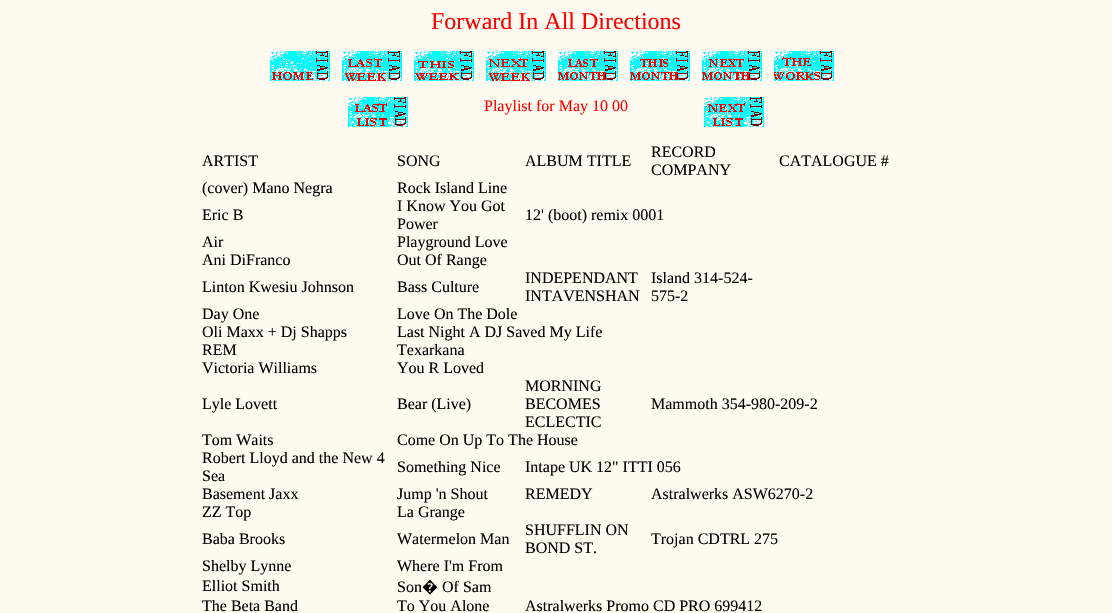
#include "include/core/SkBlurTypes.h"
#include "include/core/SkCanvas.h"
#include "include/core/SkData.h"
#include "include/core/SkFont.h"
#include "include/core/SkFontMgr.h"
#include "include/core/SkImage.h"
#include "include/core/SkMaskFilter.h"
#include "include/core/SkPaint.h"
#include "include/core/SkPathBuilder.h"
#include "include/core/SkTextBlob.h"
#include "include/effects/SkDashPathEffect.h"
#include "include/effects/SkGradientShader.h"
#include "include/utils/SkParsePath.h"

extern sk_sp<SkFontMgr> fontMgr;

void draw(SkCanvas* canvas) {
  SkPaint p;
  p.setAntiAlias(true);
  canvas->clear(SkColorSetRGB(255, 251, 240));
  canvas->drawImageRect(SkImages::DeferredFromEncodedData(SkData::MakeFromFileName("images/1.png")), SkRect::MakeLTRB(270, 51, 330, 81), SkSamplingOptions());
  canvas->drawImageRect(SkImages::DeferredFromEncodedData(SkData::MakeFromFileName("images/2.png")), SkRect::MakeLTRB(342, 51, 402, 81), SkSamplingOptions());
  canvas->drawImageRect(SkImages::DeferredFromEncodedData(SkData::MakeFromFileName("images/3.png")), SkRect::MakeLTRB(414, 51, 474, 81), SkSamplingOptions());
  canvas->drawImageRect(SkImages::DeferredFromEncodedData(SkData::MakeFromFileName("images/4.png")), SkRect::MakeLTRB(486, 51, 546, 81), SkSamplingOptions());
  canvas->drawImageRect(SkImages::DeferredFromEncodedData(SkData::MakeFromFileName("images/5.png")), SkRect::MakeLTRB(558, 51, 618, 81), SkSamplingOptions());
  canvas->drawImageRect(SkImages::DeferredFromEncodedData(SkData::MakeFromFileName("images/6.png")), SkRect::MakeLTRB(630, 51, 690, 81), SkSamplingOptions());
  canvas->drawImageRect(SkImages::DeferredFromEncodedData(SkData::MakeFromFileName("images/7.png")), SkRect::MakeLTRB(702, 51, 762, 81), SkSamplingOptions());
  canvas->drawImageRect(SkImages::DeferredFromEncodedData(SkData::MakeFromFileName("images/8.png")), SkRect::MakeLTRB(774, 51, 834, 81), SkSamplingOptions());
  canvas->drawImageRect(SkImages::DeferredFromEncodedData(SkData::MakeFromFileName("images/9.png")), SkRect::MakeLTRB(348, 97, 408, 127), SkSamplingOptions());
  canvas->drawImageRect(SkImages::DeferredFromEncodedData(SkData::MakeFromFileName("images/10.png")), SkRect::MakeLTRB(704, 97, 764, 127), SkSamplingOptions());
  SkFont font1(fontMgr->matchFamilyStyle("Liberation Serif", SkFontStyle::Normal()), 24);
  font1.setSubpixel(true);
  p.setColor(SkColorSetRGB(255, 0, 0));
  canvas->drawString("Forward In All Directions", 431, 29, font1, p);
  SkFont font2(fontMgr->matchFamilyStyle("Liberation Serif", SkFontStyle::Normal()), 16);
  font2.setSubpixel(true);
  canvas->drawString("Playlist for May 10 00", 484, 111, font2, p);
  p.setColor(SK_ColorBLACK);
  canvas->drawString("ARTIST", 202, 166, font2, p);
  canvas->drawString("SONG", 397, 166, font2, p);
  canvas->drawString("ALBUM TITLE", 525, 166, font2, p);
  canvas->drawString("RECORD", 651, 157, font2, p);
  canvas->drawString("COMPANY", 651, 175, font2, p);
  canvas->drawString("CATALOGUE #", 779, 166, font2, p);
  canvas->drawString("(cover) Mano Negra", 202, 193, font2, p);
  canvas->drawString("Rock Island Line", 397, 193, font2, p);
  canvas->drawString("Eric B", 202, 220, font2, p);
  canvas->drawString("I Know You Got", 397, 211, font2, p);
  canvas->drawString("Power", 397, 229, font2, p);
  canvas->drawString("12' (boot) remix 0001", 525, 220, font2, p);
  canvas->drawString("Air", 202, 247, font2, p);
  canvas->drawString("Playground Love", 397, 247, font2, p);
  canvas->drawString("Ani DiFranco", 202, 265, font2, p);
  canvas->drawString("Out Of Range", 397, 265, font2, p);
  canvas->drawString("Linton Kwesiu Johnson", 202, 292, font2, p);
  canvas->drawString("Bass Culture", 397, 292, font2, p);
  canvas->drawString("INDEPENDANT", 525, 283, font2, p);
  canvas->drawString("INTAVENSHAN", 525, 301, font2, p);
  canvas->drawString("Island 314-524-", 651, 283, font2, p);
  canvas->drawString("575-2", 651, 301, font2, p);
  canvas->drawString("Day One", 202, 319, font2, p);
  canvas->drawString("Love On The Dole", 397, 319, font2, p);
  canvas->drawString("Oli Maxx + Dj Shapps", 202, 337, font2, p);
  canvas->drawString("Last Night A DJ Saved My Life", 397, 337, font2, p);
  canvas->drawString("REM", 202, 355, font2, p);
  canvas->drawString("Texarkana", 397, 355, font2, p);
  canvas->drawString("Victoria Williams", 202, 373, font2, p);
  canvas->drawString("You R Loved", 397, 373, font2, p);
  canvas->drawString("Lyle Lovett", 202, 409, font2, p);
  canvas->drawString("Bear (Live)", 397, 409, font2, p);
  canvas->drawString("MORNING", 525, 391, font2, p);
  canvas->drawString("BECOMES", 525, 409, font2, p);
  canvas->drawString("ECLECTIC", 525, 427, font2, p);
  canvas->drawString("Mammoth 354-980-209-2", 651, 409, font2, p);
  canvas->drawString("Tom Waits", 202, 445, font2, p);
  canvas->drawString("Come On Up To The House", 397, 445, font2, p);
  canvas->drawString("Robert Lloyd and the New 4", 202, 463, font2, p);
  canvas->drawString("Sea", 202, 481, font2, p);
  canvas->drawString("Something Nice", 397, 472, font2, p);
  canvas->drawString("Intape UK 12\" ITTI 056", 525, 472, font2, p);
  canvas->drawString("Basement Jaxx", 202, 499, font2, p);
  canvas->drawString("Jump 'n Shout", 397, 499, font2, p);
  canvas->drawString("REMEDY", 525, 499, font2, p);
  canvas->drawString("Astralwerks ASW6270-2", 651, 499, font2, p);
  canvas->drawString("ZZ Top", 202, 517, font2, p);
  canvas->drawString("La Grange", 397, 517, font2, p);
  canvas->drawString("Baba Brooks", 202, 544, font2, p);
  canvas->drawString("Watermelon Man", 397, 544, font2, p);
  canvas->drawString("SHUFFLIN ON", 525, 535, font2, p);
  canvas->drawString("BOND ST.", 525, 553, font2, p);
  canvas->drawString("Trojan CDTRL 275", 651, 544, font2, p);
  canvas->drawString("Shelby Lynne", 202, 571, font2, p);
  canvas->drawString("Where I'm From", 397, 571, font2, p);
  canvas->drawString("Elliot Smith", 202, 591, font2, p);
  canvas->drawString("Son", 397, 592, font2, p);
  SkFont font3(fontMgr->matchFamilyStyle("Noto Sans", SkFontStyle::Normal()), 16);
  font3.setSubpixel(true);
  canvas->drawString("�", 422, 592, font3, p);
  canvas->drawString("Of Sam", 442, 592, font2, p);
  canvas->drawString("The Beta Band", 202, 611, font2, p);
  canvas->drawString("To You Alone", 397, 611, font2, p);
  canvas->drawString("Astralwerks Promo CD PRO 699412", 525, 611, font2, p);
}
